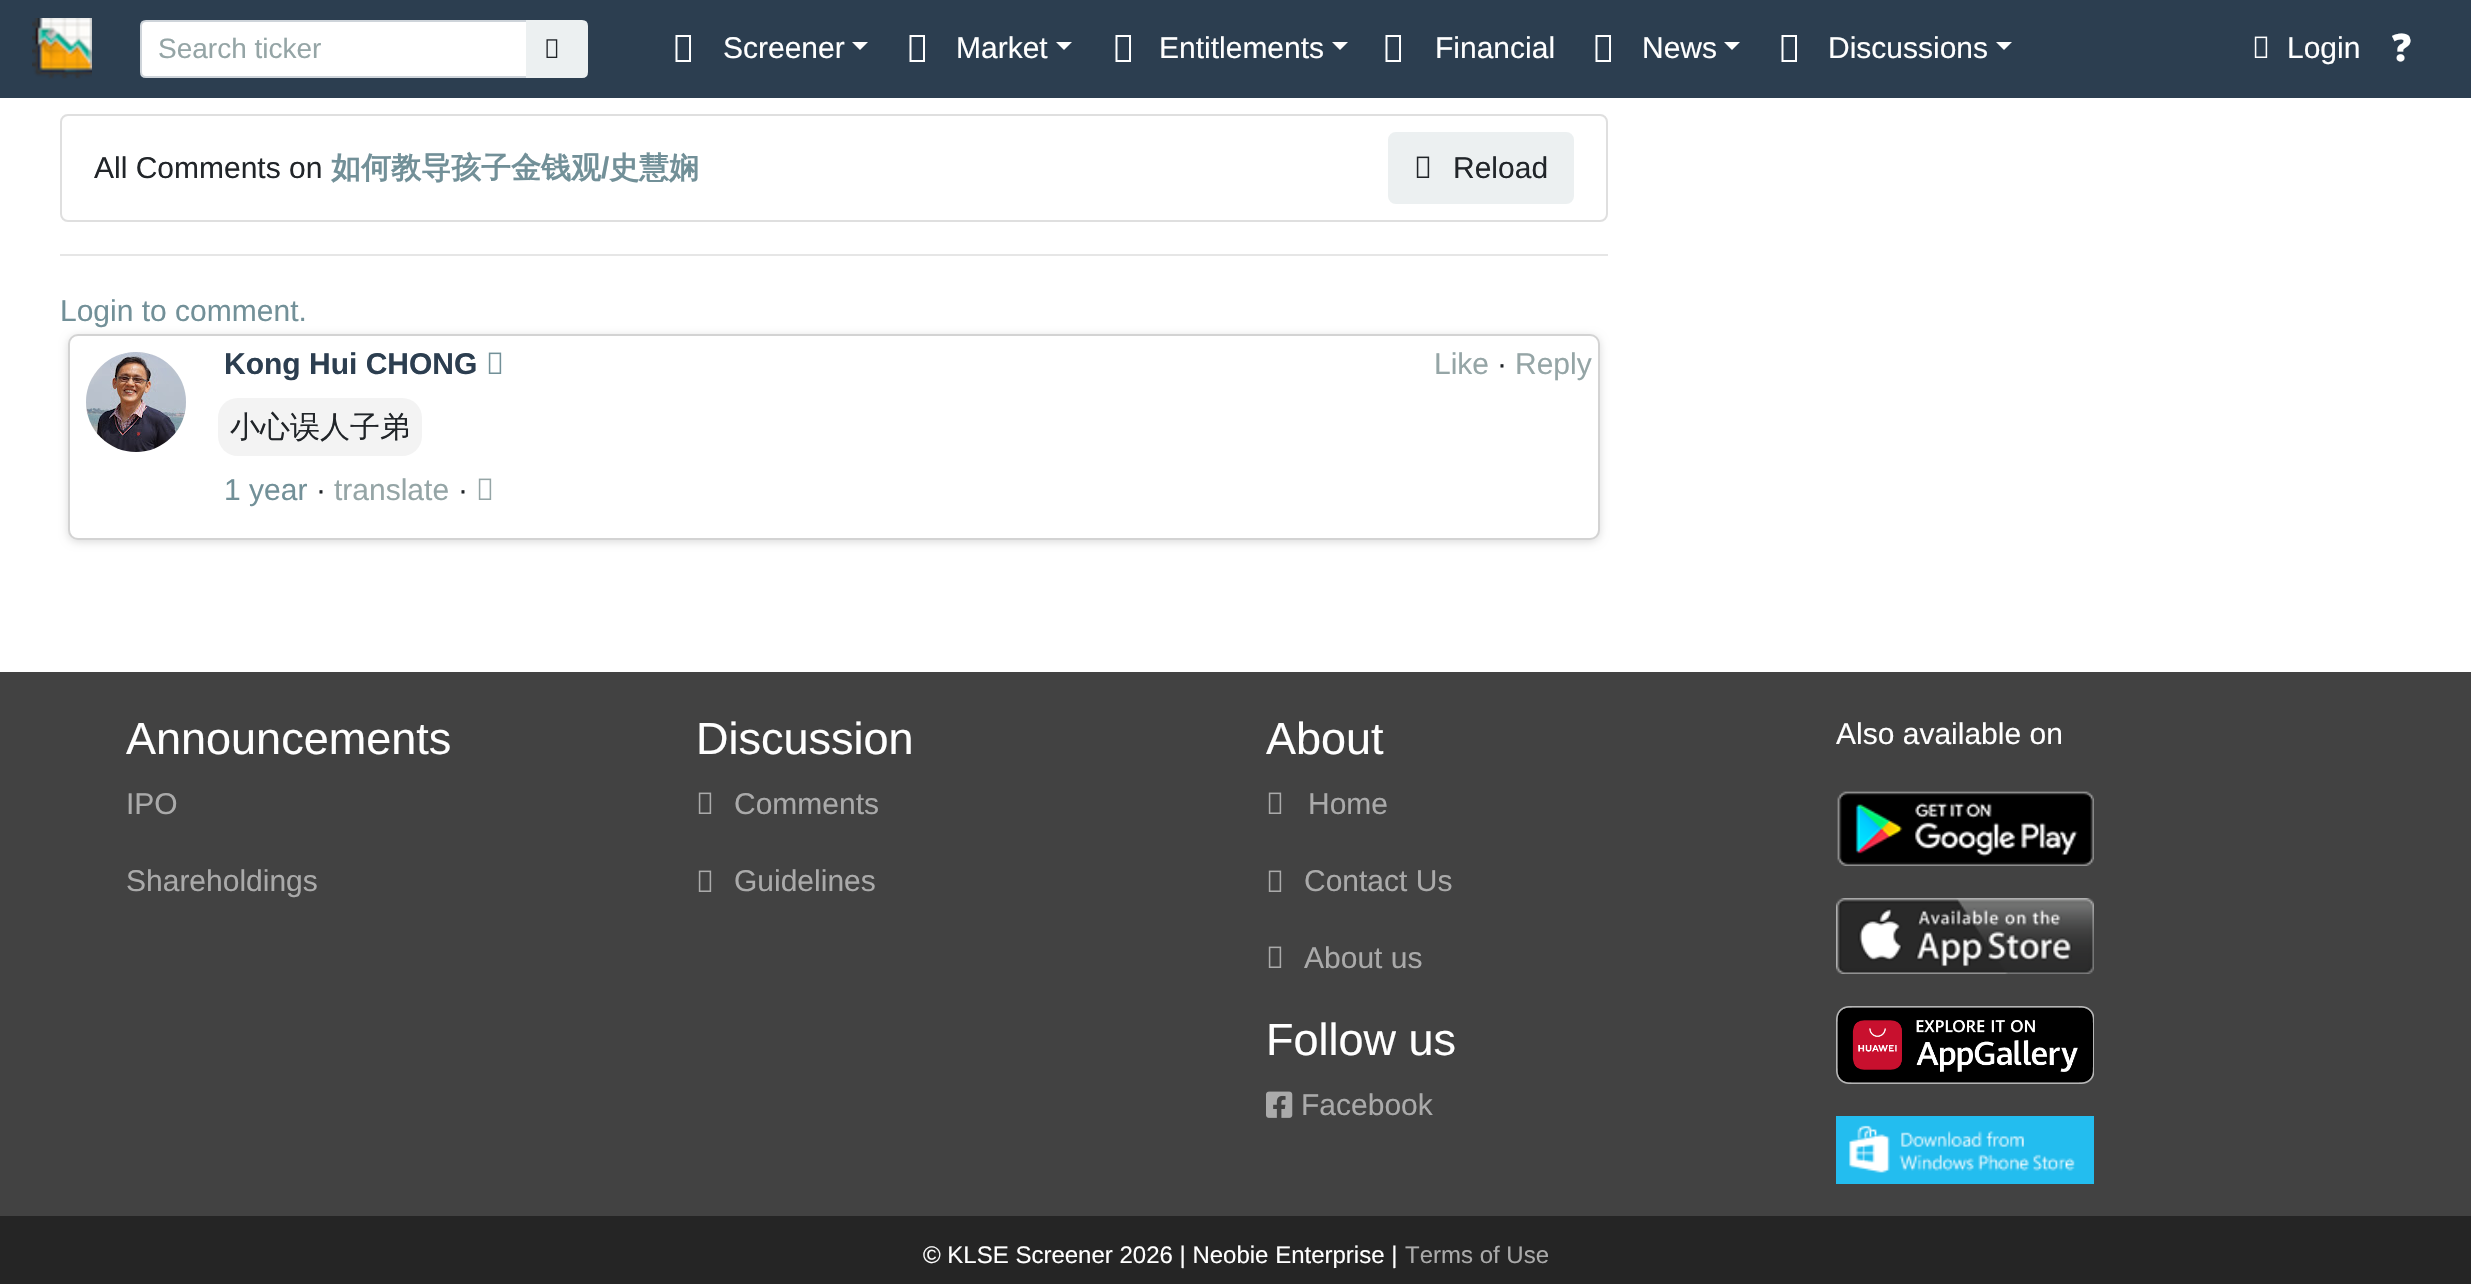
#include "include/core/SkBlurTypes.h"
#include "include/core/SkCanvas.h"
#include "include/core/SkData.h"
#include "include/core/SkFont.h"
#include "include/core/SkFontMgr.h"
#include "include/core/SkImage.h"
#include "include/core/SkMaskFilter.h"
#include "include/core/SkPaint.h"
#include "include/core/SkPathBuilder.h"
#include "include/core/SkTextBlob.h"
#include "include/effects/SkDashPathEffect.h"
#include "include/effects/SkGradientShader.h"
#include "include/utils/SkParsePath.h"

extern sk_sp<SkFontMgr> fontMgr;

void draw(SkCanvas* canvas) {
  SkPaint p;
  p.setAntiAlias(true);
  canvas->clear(SK_ColorWHITE);
  p.setColor(SkColorSetRGB(44, 62, 80));
  canvas->drawRect(SkRect::MakeLTRB(0, 0, 2471, 98), p);
  canvas->drawImageRect(SkImages::DeferredFromEncodedData(SkData::MakeFromFileName("images/1.png")), SkRect::MakeLTRB(32, 18, 92, 79), SkSamplingOptions());
  p.setColor(SK_ColorWHITE);
  canvas->drawPath(SkPathBuilder().moveTo(146, 21).lineTo(527, 21).lineTo(527, 77).lineTo(146, 77).cubicTo(143, 77, 141, 75, 141, 72).lineTo(141, 26).cubicTo(141, 23, 143, 21, 146, 21).close().detach(), p);
  p.setStyle(SkPaint::kStroke_Style);
  p.setStrokeWidth(2);
  p.setColor(SkColorSetRGB(206, 212, 218));
  canvas->drawPath(SkPathBuilder().moveTo(146, 21).lineTo(527, 21).lineTo(527, 77).lineTo(146, 77).cubicTo(143, 77, 141, 75, 141, 72).lineTo(141, 26).cubicTo(141, 23, 143, 21, 146, 21).close().detach(), p);
  p.setStyle(SkPaint::kFill_Style);
  p.setColor(SkColorSetRGB(236, 240, 241));
  canvas->drawPath(SkPathBuilder().moveTo(527, 21).lineTo(582, 21).cubicTo(585, 21, 587, 23, 587, 26).lineTo(587, 72).cubicTo(587, 75, 585, 77, 582, 77).lineTo(527, 77).close().detach(), p);
  p.setStyle(SkPaint::kStroke_Style);
  canvas->drawPath(SkPathBuilder().moveTo(527, 21).lineTo(582, 21).cubicTo(585, 21, 587, 23, 587, 26).lineTo(587, 72).cubicTo(587, 75, 585, 77, 582, 77).lineTo(527, 77).close().detach(), p);
  canvas->drawImageRect(SkImages::DeferredFromEncodedData(SkData::MakeFromFileName("images/2.png")), SkRect::MakeLTRB(546, 39, 558, 58), SkSamplingOptions());
  p.setStyle(SkPaint::kFill_Style);
  p.setColor(SK_ColorWHITE);
  canvas->drawPath(SkPathBuilder().moveTo(675.5f, 62).lineTo(675.5f, 35).lineTo(691, 35).lineTo(691, 62).close().moveTo(677.5f, 60).lineTo(689, 60).lineTo(689, 37).lineTo(677.5f, 37).close().detach(), p);
  canvas->drawPath(SkPathBuilder().moveTo(852, 42).lineTo(868, 42).lineTo(860, 50).close().detach(), p);
  canvas->drawPath(SkPathBuilder().moveTo(909.5f, 62).lineTo(909.5f, 35).lineTo(925, 35).lineTo(925, 62).close().moveTo(911.5f, 60).lineTo(923, 60).lineTo(923, 37).lineTo(911.5f, 37).close().detach(), p);
  canvas->drawPath(SkPathBuilder().moveTo(1056, 42).lineTo(1072, 42).lineTo(1064, 50).close().detach(), p);
  canvas->drawPath(SkPathBuilder().moveTo(1115.5f, 62).lineTo(1115.5f, 35).lineTo(1131, 35).lineTo(1131, 62).close().moveTo(1117.5f, 60).lineTo(1129, 60).lineTo(1129, 37).lineTo(1117.5f, 37).close().detach(), p);
  canvas->drawPath(SkPathBuilder().moveTo(1332, 42).lineTo(1348, 42).lineTo(1340, 50).close().detach(), p);
  canvas->drawPath(SkPathBuilder().moveTo(1385.5f, 62).lineTo(1385.5f, 35).lineTo(1401, 35).lineTo(1401, 62).close().moveTo(1387.5f, 60).lineTo(1399, 60).lineTo(1399, 37).lineTo(1387.5f, 37).close().detach(), p);
  canvas->drawPath(SkPathBuilder().moveTo(1595.5f, 62).lineTo(1595.5f, 35).lineTo(1611, 35).lineTo(1611, 62).close().moveTo(1597.5f, 60).lineTo(1609, 60).lineTo(1609, 37).lineTo(1597.5f, 37).close().detach(), p);
  canvas->drawPath(SkPathBuilder().moveTo(1724, 42).lineTo(1740, 42).lineTo(1732, 50).close().detach(), p);
  canvas->drawPath(SkPathBuilder().moveTo(1781.5f, 62).lineTo(1781.5f, 35).lineTo(1797, 35).lineTo(1797, 62).close().moveTo(1783.5f, 60).lineTo(1795, 60).lineTo(1795, 37).lineTo(1783.5f, 37).close().detach(), p);
  canvas->drawPath(SkPathBuilder().moveTo(1996, 42).lineTo(2012, 42).lineTo(2004, 50).close().detach(), p);
  canvas->drawImageRect(SkImages::DeferredFromEncodedData(SkData::MakeFromFileName("images/3.png")), SkRect::MakeLTRB(2254, 36, 2268, 58), SkSamplingOptions());
  p.setStyle(SkPaint::kStroke_Style);
  p.setColor(SkColorSetRGB(223, 223, 223));
  canvas->drawRoundRect(SkRect::MakeLTRB(61, 115, 1607, 221), 7, 7, p);
  p.setStyle(SkPaint::kFill_Style);
  p.setColor(SkColorSetRGB(236, 240, 241));
  canvas->drawRoundRect(SkRect::MakeLTRB(1389, 133, 1573, 203), 7, 7, p);
  p.setStyle(SkPaint::kStroke_Style);
  canvas->drawRoundRect(SkRect::MakeLTRB(1389, 133, 1573, 203), 7, 7, p);
  canvas->drawImageRect(SkImages::DeferredFromEncodedData(SkData::MakeFromFileName("images/4.png")), SkRect::MakeLTRB(1416, 156, 1430, 178), SkSamplingOptions());
  p.setStyle(SkPaint::kFill_Style);
  p.setColor(SkColorSetRGB(230, 230, 230));
  canvas->drawRect(SkRect::MakeLTRB(60, 254, 1608, 256), p);
  p.setColor(SkColorSetARGB(36, 0, 0, 0));
  p.setMaskFilter(SkMaskFilter::MakeBlur(kNormal_SkBlurStyle, 4));
  canvas->drawRoundRect(SkRect::MakeLTRB(68, 336, 1600, 542), 10, 10, p);
  p.setMaskFilter(nullptr);
  p.setColor(SK_ColorWHITE);
  canvas->drawRoundRect(SkRect::MakeLTRB(69, 335, 1599, 539), 9, 9, p);
  p.setStyle(SkPaint::kStroke_Style);
  p.setColor(SkColorSetRGB(211, 211, 211));
  canvas->drawRoundRect(SkRect::MakeLTRB(69, 335, 1599, 539), 9, 9, p);
  p.setStyle(SkPaint::kFill_Style);
  p.setColor(SkColorSetRGB(239, 239, 239));
  canvas->drawCircle(136, 402, 50, p);
  canvas->drawImageRect(SkImages::DeferredFromEncodedData(SkData::MakeFromFileName("images/5.png")), SkRect::MakeLTRB(86, 352, 186, 452), SkSamplingOptions());
  canvas->drawImageRect(SkImages::DeferredFromEncodedData(SkData::MakeFromFileName("images/6.png")), SkRect::MakeLTRB(488, 352, 502, 374), SkSamplingOptions());
  p.setColor(SkColorSetRGB(243, 243, 243));
  canvas->drawRoundRect(SkRect::MakeLTRB(218, 398, 422, 456), 20, 20, p);
  canvas->drawImageRect(SkImages::DeferredFromEncodedData(SkData::MakeFromFileName("images/7.png")), SkRect::MakeLTRB(478, 478, 492, 500), SkSamplingOptions());
  p.setColor(SkColorSetRGB(66, 66, 66));
  canvas->drawRect(SkRect::MakeLTRB(0, 672, 2471, 1216), p);
  canvas->drawImageRect(SkImages::DeferredFromEncodedData(SkData::MakeFromFileName("images/8.png")), SkRect::MakeLTRB(698, 792, 712, 814), SkSamplingOptions());
  canvas->drawImageRect(SkImages::DeferredFromEncodedData(SkData::MakeFromFileName("images/8.png")), SkRect::MakeLTRB(698, 870, 712, 892), SkSamplingOptions());
  canvas->drawImageRect(SkImages::DeferredFromEncodedData(SkData::MakeFromFileName("images/8.png")), SkRect::MakeLTRB(1268, 792, 1282, 814), SkSamplingOptions());
  canvas->drawImageRect(SkImages::DeferredFromEncodedData(SkData::MakeFromFileName("images/8.png")), SkRect::MakeLTRB(1268, 870, 1282, 892), SkSamplingOptions());
  canvas->drawImageRect(SkImages::DeferredFromEncodedData(SkData::MakeFromFileName("images/8.png")), SkRect::MakeLTRB(1268, 946, 1282, 968), SkSamplingOptions());
  canvas->drawImageRect(SkImages::DeferredFromEncodedData(SkData::MakeFromFileName("images/9.png")), SkRect::MakeLTRB(1266, 1091, 1293, 1118), SkSamplingOptions());
  canvas->drawImageRect(SkImages::DeferredFromEncodedData(SkData::MakeFromFileName("images/10.png")), SkRect::MakeLTRB(1837, 791, 2094, 866), SkSamplingOptions());
  canvas->drawImageRect(SkImages::DeferredFromEncodedData(SkData::MakeFromFileName("images/11.png")), SkRect::MakeLTRB(1836, 898, 2094, 974), SkSamplingOptions());
  canvas->drawImageRect(SkImages::DeferredFromEncodedData(SkData::MakeFromFileName("images/12.png")), SkRect::MakeLTRB(1836, 1006, 2094, 1084), SkSamplingOptions());
  canvas->drawImageRect(SkImages::DeferredFromEncodedData(SkData::MakeFromFileName("images/13.png")), SkRect::MakeLTRB(1836, 1116, 2094, 1184), SkSamplingOptions());
  p.setColor(SkColorSetRGB(37, 37, 37));
  canvas->drawRect(SkRect::MakeLTRB(0, 1216, 2471, 1284), p);
  SkFont font1(fontMgr->matchFamilyStyle("Liberation Sans", SkFontStyle::Normal()), 28);
  font1.setSubpixel(true);
  p.setColor(SkColorSetRGB(149, 165, 166));
  canvas->drawString("Search ticker", 158, 58, font1, p);
  SkFont font2(fontMgr->matchFamilyStyle("Liberation Sans", SkFontStyle::Normal()), 30);
  font2.setSubpixel(true);
  p.setColor(SK_ColorWHITE);
  canvas->drawString("Screener", 723, 58, font2, p);
  canvas->drawString("Market", 956, 58, font2, p);
  canvas->drawString("Entitlements", 1159, 58, font2, p);
  canvas->drawString("Financial", 1435, 58, font2, p);
  canvas->drawString("News", 1642, 58, font2, p);
  canvas->drawString("Discussions", 1828, 58, font2, p);
  canvas->drawString("Login", 2287, 58, font2, p);
  SkFont font3(fontMgr->matchFamilyStyle("Noto Sans", SkFontStyle(900, SkFontStyle::kNormal_Width, SkFontStyle::kUpright_Slant)), 38);
  font3.setSubpixel(true);
  canvas->drawString("?", 2392, 61, font3, p);
  p.setColor(SkColorSetRGB(33, 37, 41));
  canvas->drawString("All Comments on", 94, 178, font2, p);
  SkFont font4(fontMgr->matchFamilyStyle("WenQuanYi Zen Hei", SkFontStyle::Bold()), 30);
  font4.setSubpixel(true);
  p.setColor(SkColorSetRGB(114, 144, 152));
  canvas->drawString("如何教导孩子金钱观", 331, 178, font4, p);
  SkFont font5(fontMgr->matchFamilyStyle("Liberation Sans", SkFontStyle::Bold()), 30);
  font5.setSubpixel(true);
  canvas->drawString("/", 601, 178, font5, p);
  canvas->drawString("史慧娴", 609, 178, font4, p);
  p.setColor(SkColorSetRGB(33, 37, 41));
  canvas->drawString("Reload", 1453, 178, font2, p);
  p.setColor(SkColorSetRGB(114, 144, 152));
  canvas->drawString("Login to comment.", 60, 321, font2, p);
  p.setColor(SkColorSetRGB(44, 62, 80));
  canvas->drawString("Kong Hui CHONG", 224, 374, font5, p);
  p.setColor(SkColorSetRGB(149, 165, 166));
  canvas->drawString("Like", 1434, 374, font2, p);
  p.setColor(SkColorSetRGB(33, 37, 41));
  canvas->drawString("·", 1497, 374, font2, p);
  p.setColor(SkColorSetRGB(149, 165, 166));
  canvas->drawString("Reply", 1515, 374, font2, p);
  SkFont font6(fontMgr->matchFamilyStyle("WenQuanYi Zen Hei", SkFontStyle(500, SkFontStyle::kNormal_Width, SkFontStyle::kUpright_Slant)), 30);
  font6.setSubpixel(true);
  p.setColor(SkColorSetRGB(33, 37, 41));
  canvas->drawString("小心误人子弟", 230, 437, font6, p);
  p.setColor(SkColorSetRGB(114, 144, 152));
  canvas->drawString("1 year", 224, 500, font2, p);
  p.setColor(SkColorSetRGB(33, 37, 41));
  canvas->drawString("·", 316, 500, font2, p);
  p.setColor(SkColorSetRGB(149, 165, 166));
  canvas->drawString("translate", 334, 500, font2, p);
  p.setColor(SkColorSetRGB(33, 37, 41));
  canvas->drawString("·", 458, 500, font2, p);
  SkFont font7(fontMgr->matchFamilyStyle("Liberation Sans", SkFontStyle::Normal()), 45);
  font7.setSubpixel(true);
  p.setColor(SK_ColorWHITE);
  canvas->drawString("Announcements", 126, 754, font7, p);
  p.setColor(SkColorSetRGB(170, 170, 170));
  canvas->drawString("IPO", 126, 814, font2, p);
  canvas->drawString("Shareholdings", 126, 891, font2, p);
  p.setColor(SK_ColorWHITE);
  canvas->drawString("Discussion", 696, 754, font7, p);
  p.setColor(SkColorSetRGB(170, 170, 170));
  canvas->drawString("Comments", 734, 814, font2, p);
  canvas->drawString("Guidelines", 734, 891, font2, p);
  p.setColor(SK_ColorWHITE);
  canvas->drawString("About", 1266, 754, font7, p);
  p.setColor(SkColorSetRGB(170, 170, 170));
  canvas->drawString("Home", 1308, 814, font2, p);
  canvas->drawString("Contact Us", 1304, 891, font2, p);
  canvas->drawString("About us", 1304, 968, font2, p);
  p.setColor(SK_ColorWHITE);
  canvas->drawString("Follow us", 1266, 1055, font7, p);
  p.setColor(SkColorSetRGB(170, 170, 170));
  canvas->drawString("Facebook", 1301, 1115, font2, p);
  p.setColor(SK_ColorWHITE);
  canvas->drawString("Also available on", 1836, 744, font2, p);
  SkFont font8(fontMgr->matchFamilyStyle("Liberation Sans", SkFontStyle::Normal()), 24);
  font8.setSubpixel(true);
  canvas->drawString("© KLSE Screener 2026 | Neobie Enterprise |", 923, 1263, font8, p);
  p.setColor(SkColorSetRGB(170, 170, 170));
  canvas->drawString("Terms of Use", 1405, 1263, font8, p);
}
